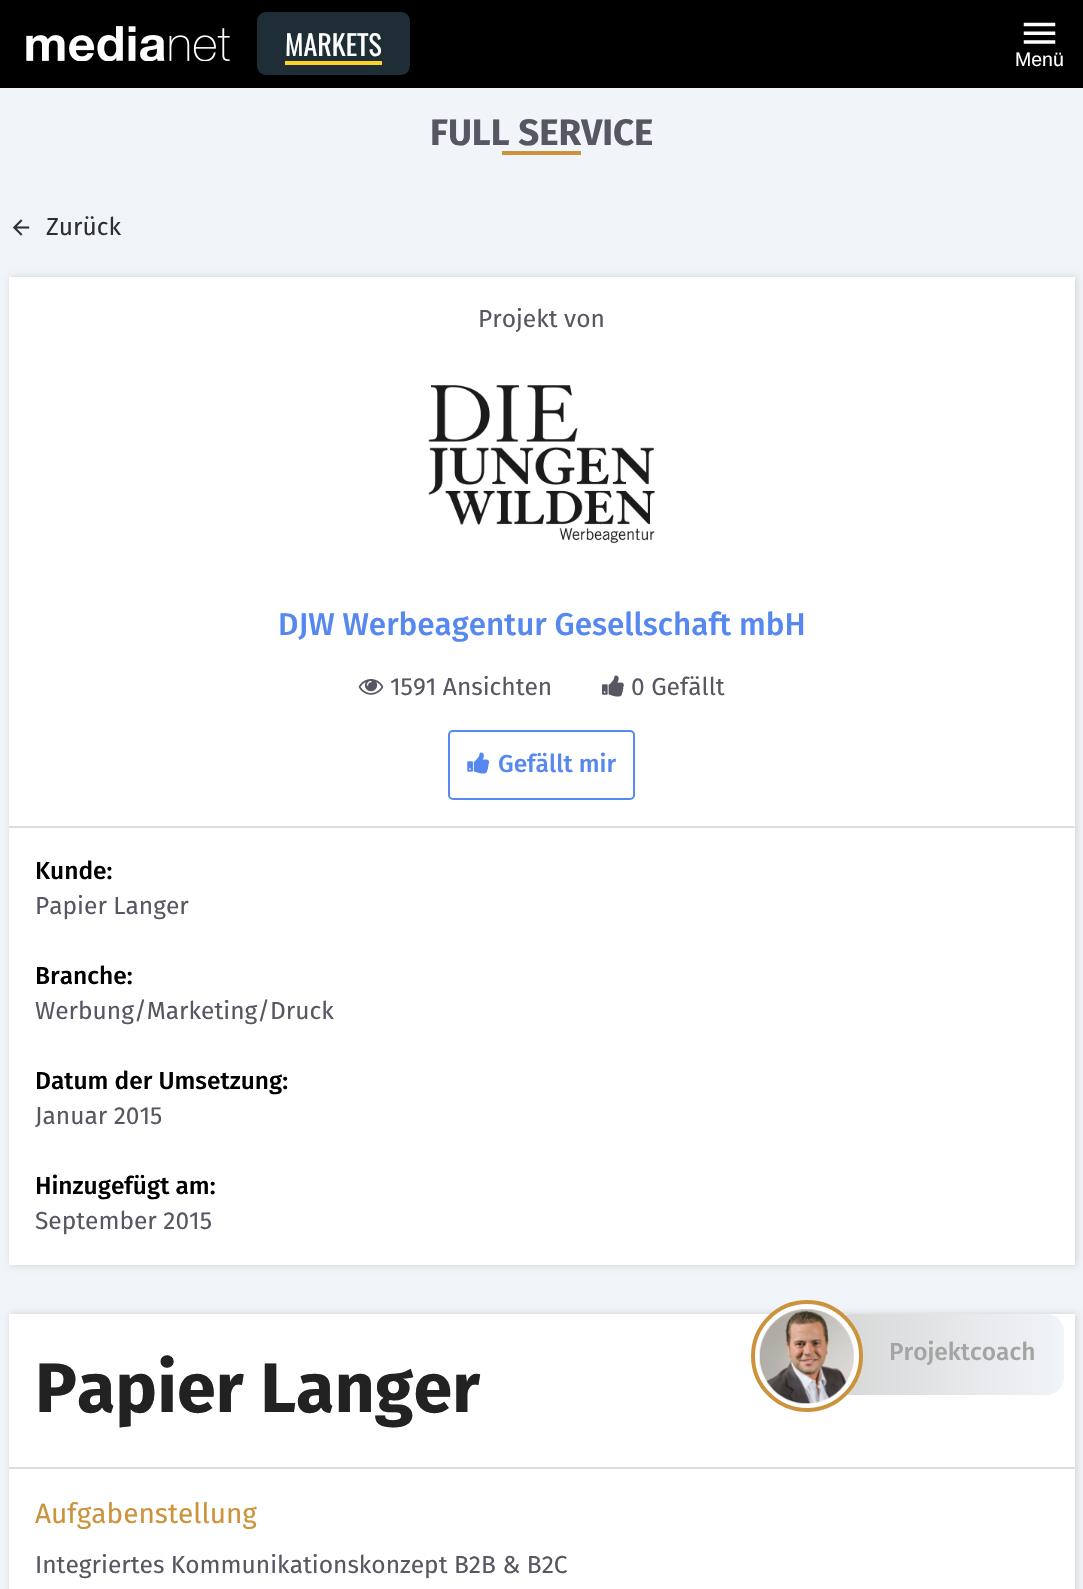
#include "include/core/SkBlurTypes.h"
#include "include/core/SkCanvas.h"
#include "include/core/SkData.h"
#include "include/core/SkFont.h"
#include "include/core/SkFontMgr.h"
#include "include/core/SkImage.h"
#include "include/core/SkMaskFilter.h"
#include "include/core/SkPaint.h"
#include "include/core/SkPathBuilder.h"
#include "include/core/SkTextBlob.h"
#include "include/effects/SkDashPathEffect.h"
#include "include/effects/SkGradientShader.h"
#include "include/utils/SkParsePath.h"

extern sk_sp<SkFontMgr> fontMgr;

void draw(SkCanvas* canvas) {
  SkPaint p;
  p.setAntiAlias(true);
  canvas->clear(SkColorSetRGB(241, 244, 248));
  p.setColor(SK_ColorBLACK);
  canvas->drawRect(SkRect::MakeLTRB(0, 0, 1083, 88), p);
  canvas->drawImageRect(SkImages::DeferredFromEncodedData(SkData::MakeFromFileName("images/1.png")), SkRect::MakeLTRB(26, 26, 230, 61), SkSamplingOptions());
  p.setColor(SkColorSetRGB(31, 45, 55));
  canvas->drawRoundRect(SkRect::MakeLTRB(257, 12, 410, 75), 9, 9, p);
  p.setColor(SkColorSetRGB(255, 209, 37));
  canvas->drawRect(SkRect::MakeLTRB(285, 61, 382, 65), p);
  canvas->drawImageRect(SkImages::DeferredFromEncodedData(SkData::MakeFromFileName("images/2.png")), SkRect::MakeLTRB(1023, 22, 1056, 44), SkSamplingOptions());
  p.setColor(SkColorSetRGB(204, 147, 60));
  canvas->drawRect(SkRect::MakeLTRB(502, 151, 581, 155), p);
  canvas->drawImageRect(SkImages::DeferredFromEncodedData(SkData::MakeFromFileName("images/3.png")), SkRect::MakeLTRB(12, 219, 30, 236), SkSamplingOptions());
  p.setColor(SkColorSetARGB(38, 0, 0, 0));
  p.setMaskFilter(SkMaskFilter::MakeBlur(kNormal_SkBlurStyle, 3.5f));
  canvas->drawRect(SkRect::MakeLTRB(11, 277, 1076, 1265), p);
  p.setMaskFilter(nullptr);
  p.setColor(SK_ColorWHITE);
  canvas->drawRect(SkRect::MakeLTRB(9, 277, 1075, 1265), p);
  canvas->drawImageRect(SkImages::DeferredFromEncodedData(SkData::MakeFromFileName("images/4.png")), SkRect::MakeLTRB(428, 385, 655, 543), SkSamplingOptions());
  canvas->drawImageRect(SkImages::DeferredFromEncodedData(SkData::MakeFromFileName("images/5.png")), SkRect::MakeLTRB(358, 679, 384, 695), SkSamplingOptions());
  canvas->drawImageRect(SkImages::DeferredFromEncodedData(SkData::MakeFromFileName("images/6.png")), SkRect::MakeLTRB(602, 675, 624, 697), SkSamplingOptions());
  p.setStyle(SkPaint::kStroke_Style);
  p.setStrokeWidth(2);
  p.setColor(SkColorSetRGB(86, 136, 239));
  canvas->drawRoundRect(SkRect::MakeLTRB(449, 731, 634, 799), 4, 4, p);
  canvas->drawImageRect(SkImages::DeferredFromEncodedData(SkData::MakeFromFileName("images/7.png")), SkRect::MakeLTRB(467, 752, 490, 774), SkSamplingOptions());
  p.setStyle(SkPaint::kFill_Style);
  p.setColor(SkColorSetRGB(221, 221, 221));
  canvas->drawRect(SkRect::MakeLTRB(9, 826, 1075, 828), p);
  p.setColor(SkColorSetARGB(38, 0, 0, 0));
  p.setMaskFilter(SkMaskFilter::MakeBlur(kNormal_SkBlurStyle, 3.5f));
  canvas->drawRect(SkRect::MakeLTRB(11, 1314, 1076, 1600), p);
  p.setMaskFilter(nullptr);
  p.setColor(SK_ColorWHITE);
  canvas->drawRect(SkRect::MakeLTRB(9, 1314, 1075, 1589), p);
  p.setColor(SkColorSetRGB(221, 221, 221));
  canvas->drawRect(SkRect::MakeLTRB(9, 1467, 1075, 1469), p);
  {
    const SkColor colors[] = {SkColorSetRGB(215, 215, 215), SkColorSetRGB(241, 244, 248)};
    const float stops[] = {0, 1};
    const SkPoint ends[] = {{833, 1355}, {1064, 1355}};
    p.setShader(SkGradientShader::MakeLinear(ends, colors, stops, 2, SkTileMode::kClamp));
    p.setAlpha(255);
  }
  canvas->drawRoundRect(SkRect::MakeLTRB(833, 1314, 1064, 1395), 18, 18, p);
  p.setShader(nullptr);
  p.setColor(SK_ColorWHITE);
  canvas->drawCircle(807, 1356, 54, p);
  p.setStyle(SkPaint::kStroke_Style);
  p.setStrokeWidth(4);
  p.setColor(SkColorSetRGB(204, 147, 60));
  canvas->drawCircle(807, 1356, 54, p);
  canvas->drawImageRect(SkImages::DeferredFromEncodedData(SkData::MakeFromFileName("images/8.png")), SkRect::MakeLTRB(759, 1309, 854, 1404), SkSamplingOptions());
  SkFont font1(fontMgr->matchFamilyStyle("Oswald", SkFontStyle::Normal()), 28);
  font1.setSubpixel(true);
  p.setStyle(SkPaint::kFill_Style);
  p.setColor(SK_ColorWHITE);
  canvas->drawString("MARKETS", 285, 56, font1, p);
  SkFont font2(fontMgr->matchFamilyStyle("Liberation Sans", SkFontStyle::Normal()), 19.5f);
  font2.setSubpixel(true);
  canvas->drawString("Menü", 1015, 66, font2, p);
  SkFont font3(fontMgr->matchFamilyStyle("Fira Sans", SkFontStyle::Bold()), 36.75f);
  font3.setSubpixel(true);
  p.setColor(SkColorSetRGB(87, 87, 100));
  canvas->drawString("FULL SERVICE", 430, 145, font3, p);
  SkFont font4(fontMgr->matchFamilyStyle("Fira Sans", SkFontStyle::Normal()), 24.5f);
  font4.setSubpixel(true);
  p.setColor(SkColorSetRGB(46, 46, 53));
  canvas->drawString("Zurück", 46, 235, font4, p);
  p.setColor(SkColorSetRGB(87, 87, 100));
  canvas->drawString("Projekt von", 478, 327, font4, p);
  SkFont font5(fontMgr->matchFamilyStyle("Fira Sans", SkFontStyle(500, SkFontStyle::kNormal_Width, SkFontStyle::kUpright_Slant)), 31.5f);
  font5.setSubpixel(true);
  p.setColor(SkColorSetRGB(86, 136, 239));
  canvas->drawString("DJW Werbeagentur Gesellschaft mbH", 278, 635, font5, p);
  p.setColor(SkColorSetRGB(87, 87, 100));
  canvas->drawString("1591 Ansichten", 390, 695, font4, p);
  canvas->drawString("0 Gefällt", 631, 695, font4, p);
  SkFont font6(fontMgr->matchFamilyStyle("Fira Sans", SkFontStyle(500, SkFontStyle::kNormal_Width, SkFontStyle::kUpright_Slant)), 24.5f);
  font6.setSubpixel(true);
  p.setColor(SkColorSetRGB(86, 136, 239));
  canvas->drawString("Gefällt mir", 498, 772, font6, p);
  p.setColor(SK_ColorBLACK);
  canvas->drawString("Kunde:", 35, 879, font6, p);
  p.setColor(SkColorSetRGB(87, 87, 100));
  canvas->drawString("Papier Langer", 35, 914, font4, p);
  p.setColor(SK_ColorBLACK);
  canvas->drawString("Branche:", 35, 984, font6, p);
  p.setColor(SkColorSetRGB(87, 87, 100));
  canvas->drawString("Werbung/Marketing/Druck", 35, 1019, font4, p);
  p.setColor(SK_ColorBLACK);
  canvas->drawString("Datum der Umsetzung:", 35, 1089, font6, p);
  p.setColor(SkColorSetRGB(87, 87, 100));
  canvas->drawString("Januar 2015", 35, 1124, font4, p);
  p.setColor(SK_ColorBLACK);
  canvas->drawString("Hinzugefügt am:", 35, 1194, font6, p);
  p.setColor(SkColorSetRGB(87, 87, 100));
  canvas->drawString("September 2015", 35, 1229, font4, p);
  SkFont font7(fontMgr->matchFamilyStyle("Fira Sans", SkFontStyle::Bold()), 70);
  font7.setSubpixel(true);
  p.setColor(SkColorSetRGB(34, 34, 34));
  canvas->drawString("Papier Langer", 35, 1412, font7, p);
  SkFont font8(fontMgr->matchFamilyStyle("Fira Sans", SkFontStyle::Normal()), 28);
  font8.setSubpixel(true);
  p.setColor(SkColorSetRGB(204, 147, 60));
  canvas->drawString("Aufgabenstellung", 35, 1523, font8, p);
  p.setColor(SkColorSetRGB(87, 87, 100));
  canvas->drawString("Integriertes Kommunikationskonzept B2B & B2C", 35, 1573, font4, p);
  p.setColor(SkColorSetRGB(164, 164, 164));
  canvas->drawString("Projektcoach", 889, 1360, font6, p);
}
